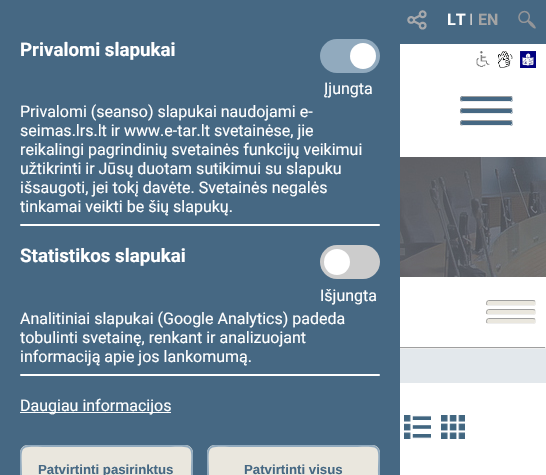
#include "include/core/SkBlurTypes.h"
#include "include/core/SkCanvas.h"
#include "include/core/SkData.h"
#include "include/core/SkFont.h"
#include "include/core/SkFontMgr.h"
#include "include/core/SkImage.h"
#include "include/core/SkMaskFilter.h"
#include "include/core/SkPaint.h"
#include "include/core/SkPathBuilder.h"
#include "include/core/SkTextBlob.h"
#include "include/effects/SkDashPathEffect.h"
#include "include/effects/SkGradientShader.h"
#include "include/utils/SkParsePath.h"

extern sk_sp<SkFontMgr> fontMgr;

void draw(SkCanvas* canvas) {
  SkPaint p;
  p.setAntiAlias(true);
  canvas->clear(SK_ColorWHITE);
  p.setColor(SkColorSetRGB(70, 104, 131));
  canvas->drawRect(SkRect::MakeLTRB(392, 0, 546, 44), p);
  canvas->drawImageRect(SkImages::DeferredFromEncodedData(SkData::MakeFromFileName("images/1.png")), SkRect::MakeLTRB(407, 10, 427, 30), SkSamplingOptions());
  canvas->drawImageRect(SkImages::DeferredFromEncodedData(SkData::MakeFromFileName("images/2.png")), SkRect::MakeLTRB(518, 10, 536, 29), SkSamplingOptions());
  canvas->drawImageRect(SkImages::DeferredFromEncodedData(SkData::MakeFromFileName("images/3.png")), SkRect::MakeLTRB(476, 51, 490, 67), SkSamplingOptions());
  canvas->drawImageRect(SkImages::DeferredFromEncodedData(SkData::MakeFromFileName("images/4.png")), SkRect::MakeLTRB(498, 51, 513, 68), SkSamplingOptions());
  canvas->drawImageRect(SkImages::DeferredFromEncodedData(SkData::MakeFromFileName("images/5.png")), SkRect::MakeLTRB(520, 51, 536, 68), SkSamplingOptions());
  canvas->drawRoundRect(SkRect::MakeLTRB(460, 96, 513, 102), 3, 3, p);
  p.setStyle(SkPaint::kStroke_Style);
  p.setStrokeWidth(1);
  p.setColor(SkColorSetRGB(238, 238, 238));
  canvas->drawPath(SkPathBuilder().moveTo(512, 97).cubicTo(513, 98.5f, 512.5f, 101, 510.5f, 101.5f).lineTo(463, 101.5f).lineTo(461, 101).detach(), p);
  p.setColor(SkColorSetRGB(159, 159, 159));
  canvas->drawPath(SkPathBuilder().moveTo(461, 101).cubicTo(460, 99.5f, 460.5f, 97, 462.5f, 96.5f).lineTo(510, 96.5f).lineTo(512, 97).detach(), p);
  p.setStyle(SkPaint::kFill_Style);
  p.setColor(SkColorSetRGB(70, 104, 131));
  canvas->drawRoundRect(SkRect::MakeLTRB(460, 108, 513, 114), 3, 3, p);
  p.setStyle(SkPaint::kStroke_Style);
  p.setColor(SkColorSetRGB(238, 238, 238));
  canvas->drawPath(SkPathBuilder().moveTo(512, 109).cubicTo(513, 110.5f, 512.5f, 113, 510.5f, 113.5f).lineTo(463, 113.5f).lineTo(461, 113).detach(), p);
  p.setColor(SkColorSetRGB(159, 159, 159));
  canvas->drawPath(SkPathBuilder().moveTo(461, 113).cubicTo(460, 111.5f, 460.5f, 109, 462.5f, 108.5f).lineTo(510, 108.5f).lineTo(512, 109).detach(), p);
  p.setStyle(SkPaint::kFill_Style);
  p.setColor(SkColorSetRGB(70, 104, 131));
  canvas->drawRoundRect(SkRect::MakeLTRB(460, 120, 513, 126), 3, 3, p);
  p.setStyle(SkPaint::kStroke_Style);
  p.setColor(SkColorSetRGB(238, 238, 238));
  canvas->drawPath(SkPathBuilder().moveTo(512, 121).cubicTo(513, 122.5f, 512.5f, 125, 510.5f, 125.5f).lineTo(463, 125.5f).lineTo(461, 125).detach(), p);
  p.setColor(SkColorSetRGB(159, 159, 159));
  canvas->drawPath(SkPathBuilder().moveTo(461, 125).cubicTo(460, 123.5f, 460.5f, 121, 462.5f, 120.5f).lineTo(510, 120.5f).lineTo(512, 121).detach(), p);
  p.setStyle(SkPaint::kFill_Style);
  p.setColor(SkColorSetRGB(70, 104, 131));
  canvas->drawPath(SkPathBuilder().moveTo(0, 0).lineTo(392, 0).cubicTo(396.5f, 0, 400, 3.5f, 400, 8).lineTo(400, 475).lineTo(0, 475).close().detach(), p);
  p.setColor(SkColorSetRGB(145, 170, 190));
  canvas->drawRoundRect(SkRect::MakeLTRB(320, 39, 380, 73), 17, 17, p);
  p.setColor(SK_ColorWHITE);
  canvas->drawCircle(363, 56, 13, p);
  canvas->drawRoundRect(SkRect::MakeLTRB(20, 224, 380, 226), 1, 1, p);
  p.setColor(SkColorSetRGB(204, 204, 204));
  canvas->drawRoundRect(SkRect::MakeLTRB(320, 245, 380, 279), 17, 17, p);
  p.setColor(SK_ColorWHITE);
  canvas->drawCircle(337, 262, 13, p);
  canvas->drawRoundRect(SkRect::MakeLTRB(20, 374, 380, 376), 1, 1, p);
  canvas->drawRect(SkRect::MakeLTRB(20, 412, 171, 413), p);
  p.setColor(SkColorSetRGB(234, 231, 222));
  canvas->drawPath(SkPathBuilder().moveTo(28, 445).lineTo(185, 445).cubicTo(189.5f, 445, 193, 448.5f, 193, 453).lineTo(193, 475).lineTo(20, 475).lineTo(20, 453).cubicTo(20, 448.5f, 23.5f, 445, 28, 445).close().detach(), p);
  p.setColor(SkColorSetRGB(145, 170, 190));
  canvas->drawPath(SkPathBuilder().moveTo(28, 445).cubicTo(24, 445, 20, 449, 20, 453).lineTo(20, 475).lineTo(22, 475).cubicTo(22, 442, 16, 447, 54, 447).lineTo(159, 447).cubicTo(197, 447, 191, 442, 191, 475).lineTo(193, 475).lineTo(193, 453).cubicTo(193, 449, 189, 445, 185, 445).close().detach(), p);
  p.setColor(SkColorSetRGB(234, 231, 222));
  canvas->drawPath(SkPathBuilder().moveTo(215, 445).lineTo(372, 445).cubicTo(376.5f, 445, 380, 448.5f, 380, 453).lineTo(380, 475).lineTo(207, 475).lineTo(207, 453).cubicTo(207, 448.5f, 210.5f, 445, 215, 445).close().detach(), p);
  p.setColor(SkColorSetRGB(145, 170, 190));
  canvas->drawPath(SkPathBuilder().moveTo(215, 445).cubicTo(211, 445, 207, 449, 207, 453).lineTo(207, 475).lineTo(209, 475).cubicTo(209, 442, 203, 447, 241, 447).lineTo(346, 447).cubicTo(384, 447, 378, 442, 378, 475).lineTo(380, 475).lineTo(380, 453).cubicTo(380, 449, 376, 445, 372, 445).close().detach(), p);
  canvas->drawImageRect(SkImages::DeferredFromEncodedData(SkData::MakeFromFileName("images/6.png")), SkRect::MakeLTRB(400, 157, 546, 277), SkSamplingOptions());
  p.setColor(SkColorSetRGB(234, 231, 222));
  canvas->drawRoundRect(SkRect::MakeLTRB(486, 300, 536, 306), 3, 3, p);
  p.setStyle(SkPaint::kStroke_Style);
  p.setColor(SkColorSetRGB(238, 238, 238));
  canvas->drawPath(SkPathBuilder().moveTo(535, 301).cubicTo(536, 302.5f, 535.5f, 305, 533.5f, 305.5f).lineTo(489, 305.5f).lineTo(487, 305).detach(), p);
  p.setColor(SkColorSetRGB(159, 159, 159));
  canvas->drawPath(SkPathBuilder().moveTo(487, 305).cubicTo(486, 303.5f, 486.5f, 301, 488.5f, 300.5f).lineTo(533, 300.5f).lineTo(535, 301).detach(), p);
  p.setStyle(SkPaint::kFill_Style);
  p.setColor(SkColorSetRGB(234, 231, 222));
  canvas->drawRoundRect(SkRect::MakeLTRB(486, 309, 536, 315), 3, 3, p);
  p.setStyle(SkPaint::kStroke_Style);
  p.setColor(SkColorSetRGB(238, 238, 238));
  canvas->drawPath(SkPathBuilder().moveTo(535, 310).cubicTo(536, 311.5f, 535.5f, 314, 533.5f, 314.5f).lineTo(489, 314.5f).lineTo(487, 314).detach(), p);
  p.setColor(SkColorSetRGB(159, 159, 159));
  canvas->drawPath(SkPathBuilder().moveTo(487, 314).cubicTo(486, 312.5f, 486.5f, 310, 488.5f, 309.5f).lineTo(533, 309.5f).lineTo(535, 310).detach(), p);
  p.setStyle(SkPaint::kFill_Style);
  p.setColor(SkColorSetRGB(234, 231, 222));
  canvas->drawRoundRect(SkRect::MakeLTRB(486, 318, 536, 324), 3, 3, p);
  p.setStyle(SkPaint::kStroke_Style);
  p.setColor(SkColorSetRGB(238, 238, 238));
  canvas->drawPath(SkPathBuilder().moveTo(535, 319).cubicTo(536, 320.5f, 535.5f, 323, 533.5f, 323.5f).lineTo(489, 323.5f).lineTo(487, 323).detach(), p);
  p.setColor(SkColorSetRGB(159, 159, 159));
  canvas->drawPath(SkPathBuilder().moveTo(487, 323).cubicTo(486, 321.5f, 486.5f, 319, 488.5f, 318.5f).lineTo(533, 318.5f).lineTo(535, 319).detach(), p);
  p.setStyle(SkPaint::kFill_Style);
  canvas->drawRect(SkRect::MakeLTRB(400, 347, 546, 348), p);
  p.setColor(SkColorSetRGB(238, 238, 238));
  canvas->drawRect(SkRect::MakeLTRB(545, 347, 546, 349), p);
  canvas->drawRect(SkRect::MakeLTRB(400, 348, 546, 349), p);
  p.setColor(SkColorSetRGB(227, 232, 236));
  canvas->drawRect(SkRect::MakeLTRB(400, 349, 546, 383), p);
  canvas->drawImageRect(SkImages::DeferredFromEncodedData(SkData::MakeFromFileName("images/7.png")), SkRect::MakeLTRB(404, 415, 431, 439), SkSamplingOptions());
  canvas->drawImageRect(SkImages::DeferredFromEncodedData(SkData::MakeFromFileName("images/8.png")), SkRect::MakeLTRB(441, 415, 465, 439), SkSamplingOptions());
  SkFont font1(fontMgr->matchFamilyStyle("Roboto", SkFontStyle::Bold()), 16);
  font1.setSubpixel(true);
  p.setColor(SK_ColorWHITE);
  canvas->drawString("LT", 447, 25, font1, p);
  SkFont font2(fontMgr->matchFamilyStyle("Roboto", SkFontStyle::Normal()), 16);
  font2.setSubpixel(true);
  p.setColor(SkColorSetRGB(204, 204, 204));
  canvas->drawString("I", 469, 25, font2, p);
  p.setColor(SkColorSetRGB(164, 164, 164));
  canvas->drawString("EN", 478, 25, font1, p);
  SkFont font3(fontMgr->matchFamilyStyle("Roboto", SkFontStyle::Bold()), 18.75f);
  font3.setSubpixel(true);
  p.setColor(SK_ColorWHITE);
  canvas->drawString("Privalomi slapukai", 20, 56, font3, p);
  canvas->drawString("Įjungta", 324, 94, font2, p);
  canvas->drawString("Privalomi (seanso) slapukai naudojami e-", 20, 117, font2, p);
  canvas->drawString("seimas.lrs.lt ir www.e-tar.lt svetainėse, jie", 20, 136, font2, p);
  canvas->drawString("reikalingi pagrindinių svetainės funkcijų veikimui", 20, 155, font2, p);
  canvas->drawString("užtikrinti ir Jūsų duotam sutikimui su slapuku", 20, 174, font2, p);
  canvas->drawString("išsaugoti, jei tokį davėte. Svetainės negalės", 20, 193, font2, p);
  canvas->drawString("tinkamai veikti be šių slapukų.", 20, 212, font2, p);
  canvas->drawString("Statistikos slapukai", 20, 262, font3, p);
  canvas->drawString("Išjungta", 320, 301, font2, p);
  canvas->drawString("Analitiniai slapukai (Google Analytics) padeda", 20, 324, font2, p);
  canvas->drawString("tobulinti svetainę, renkant ir analizuojant", 20, 343, font2, p);
  canvas->drawString("informaciją apie jos lankomumą.", 20, 362, font2, p);
  canvas->drawString("Daugiau informacijos", 20, 411, font2, p);
  SkFont font4(fontMgr->matchFamilyStyle("Liberation Sans", SkFontStyle::Bold()), 13.25f);
  font4.setSubpixel(true);
  p.setColor(SkColorSetRGB(70, 104, 131));
  canvas->drawString("Patvirtinti pasirinktus", 38, 474, font4, p);
  canvas->drawString("Patvirtinti visus", 244, 474, font4, p);
}
